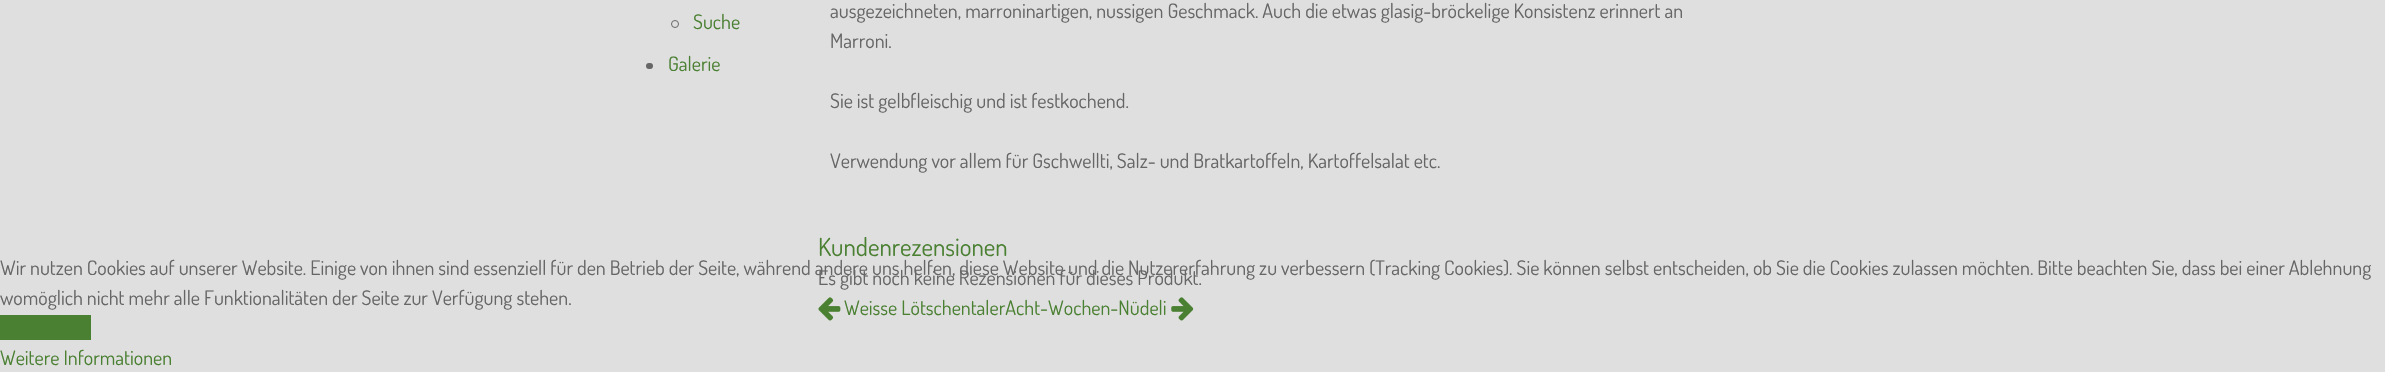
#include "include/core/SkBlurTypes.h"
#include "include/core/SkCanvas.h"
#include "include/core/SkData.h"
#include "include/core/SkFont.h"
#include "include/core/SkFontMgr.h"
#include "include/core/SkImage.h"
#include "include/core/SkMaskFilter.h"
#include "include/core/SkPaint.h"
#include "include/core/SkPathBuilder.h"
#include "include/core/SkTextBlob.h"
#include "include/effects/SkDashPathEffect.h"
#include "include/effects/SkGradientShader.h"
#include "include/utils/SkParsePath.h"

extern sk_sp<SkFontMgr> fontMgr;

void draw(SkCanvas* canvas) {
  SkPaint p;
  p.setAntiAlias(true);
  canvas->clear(SkColorSetRGB(223, 223, 223));
  p.setStyle(SkPaint::kStroke_Style);
  p.setStrokeWidth(1);
  p.setColor(SkColorSetRGB(102, 102, 102));
  canvas->drawCircle(675, 24, 3.5f, p);
  p.setStyle(SkPaint::kFill_Style);
  canvas->drawRoundRect(SkRect::MakeLTRB(646, 63, 653, 69), 3, 3, p);
  canvas->drawImageRect(SkImages::DeferredFromEncodedData(SkData::MakeFromFileName("images/1.png")), SkRect::MakeLTRB(818, 297, 841, 321), SkSamplingOptions());
  canvas->drawImageRect(SkImages::DeferredFromEncodedData(SkData::MakeFromFileName("images/2.png")), SkRect::MakeLTRB(1171, 297, 1194, 321), SkSamplingOptions());
  p.setColor(SkColorSetRGB(74, 128, 50));
  canvas->drawRect(SkRect::MakeLTRB(0, 315, 91, 340), p);
  SkFont font1(fontMgr->matchFamilyStyle("Dosis", SkFontStyle::Normal()), 20);
  font1.setSubpixel(true);
  canvas->drawString("Suche", 693, 29, font1, p);
  canvas->drawString("Galerie", 668, 71, font1, p);
  p.setColor(SkColorSetRGB(102, 102, 102));
  canvas->drawString("ausgezeichneten, marroninartigen, nussigen Geschmack. Auch die etwas glasig-bröckelige Konsistenz erinnert an", 830, 18, font1, p);
  canvas->drawString("Marroni.", 830, 48, font1, p);
  canvas->drawString("Sie ist gelbfleischig und ist festkochend.", 830, 108, font1, p);
  canvas->drawString("Verwendung vor allem für Gschwellti, Salz- und Bratkartoffeln, Kartoffelsalat etc.", 830, 168, font1, p);
  SkFont font2(fontMgr->matchFamilyStyle("Dosis", SkFontStyle::Normal()), 25);
  font2.setSubpixel(true);
  p.setColor(SkColorSetRGB(74, 128, 50));
  canvas->drawString("Kundenrezensionen", 818, 256, font2, p);
  p.setColor(SkColorSetRGB(102, 102, 102));
  canvas->drawString("Es gibt noch keine Rezensionen für dieses Produkt.", 818, 285, font1, p);
  p.setColor(SkColorSetRGB(74, 128, 50));
  canvas->drawString("Weisse LötschentalerAcht-Wochen-Nüdeli", 844, 315, font1, p);
  p.setColor(SkColorSetRGB(102, 102, 102));
  canvas->drawString("Wir nutzen Cookies auf unserer Website. Einige von ihnen sind essenziell für den Betrieb der Seite, während andere uns helfen, diese Website und die Nutzererfahrung zu verbessern (Tracking Cookies). Sie können selbst entscheiden, ob Sie die Cookies zulassen möchten. Bitte beachten Sie, dass bei einer Ablehnung", 0, 275, font1, p);
  canvas->drawString("womöglich nicht mehr alle Funktionalitäten der Seite zur Verfügung stehen.", 0, 305, font1, p);
  p.setColor(SkColorSetRGB(74, 128, 50));
  canvas->drawString("Weitere Informationen", 0, 365, font1, p);
}
